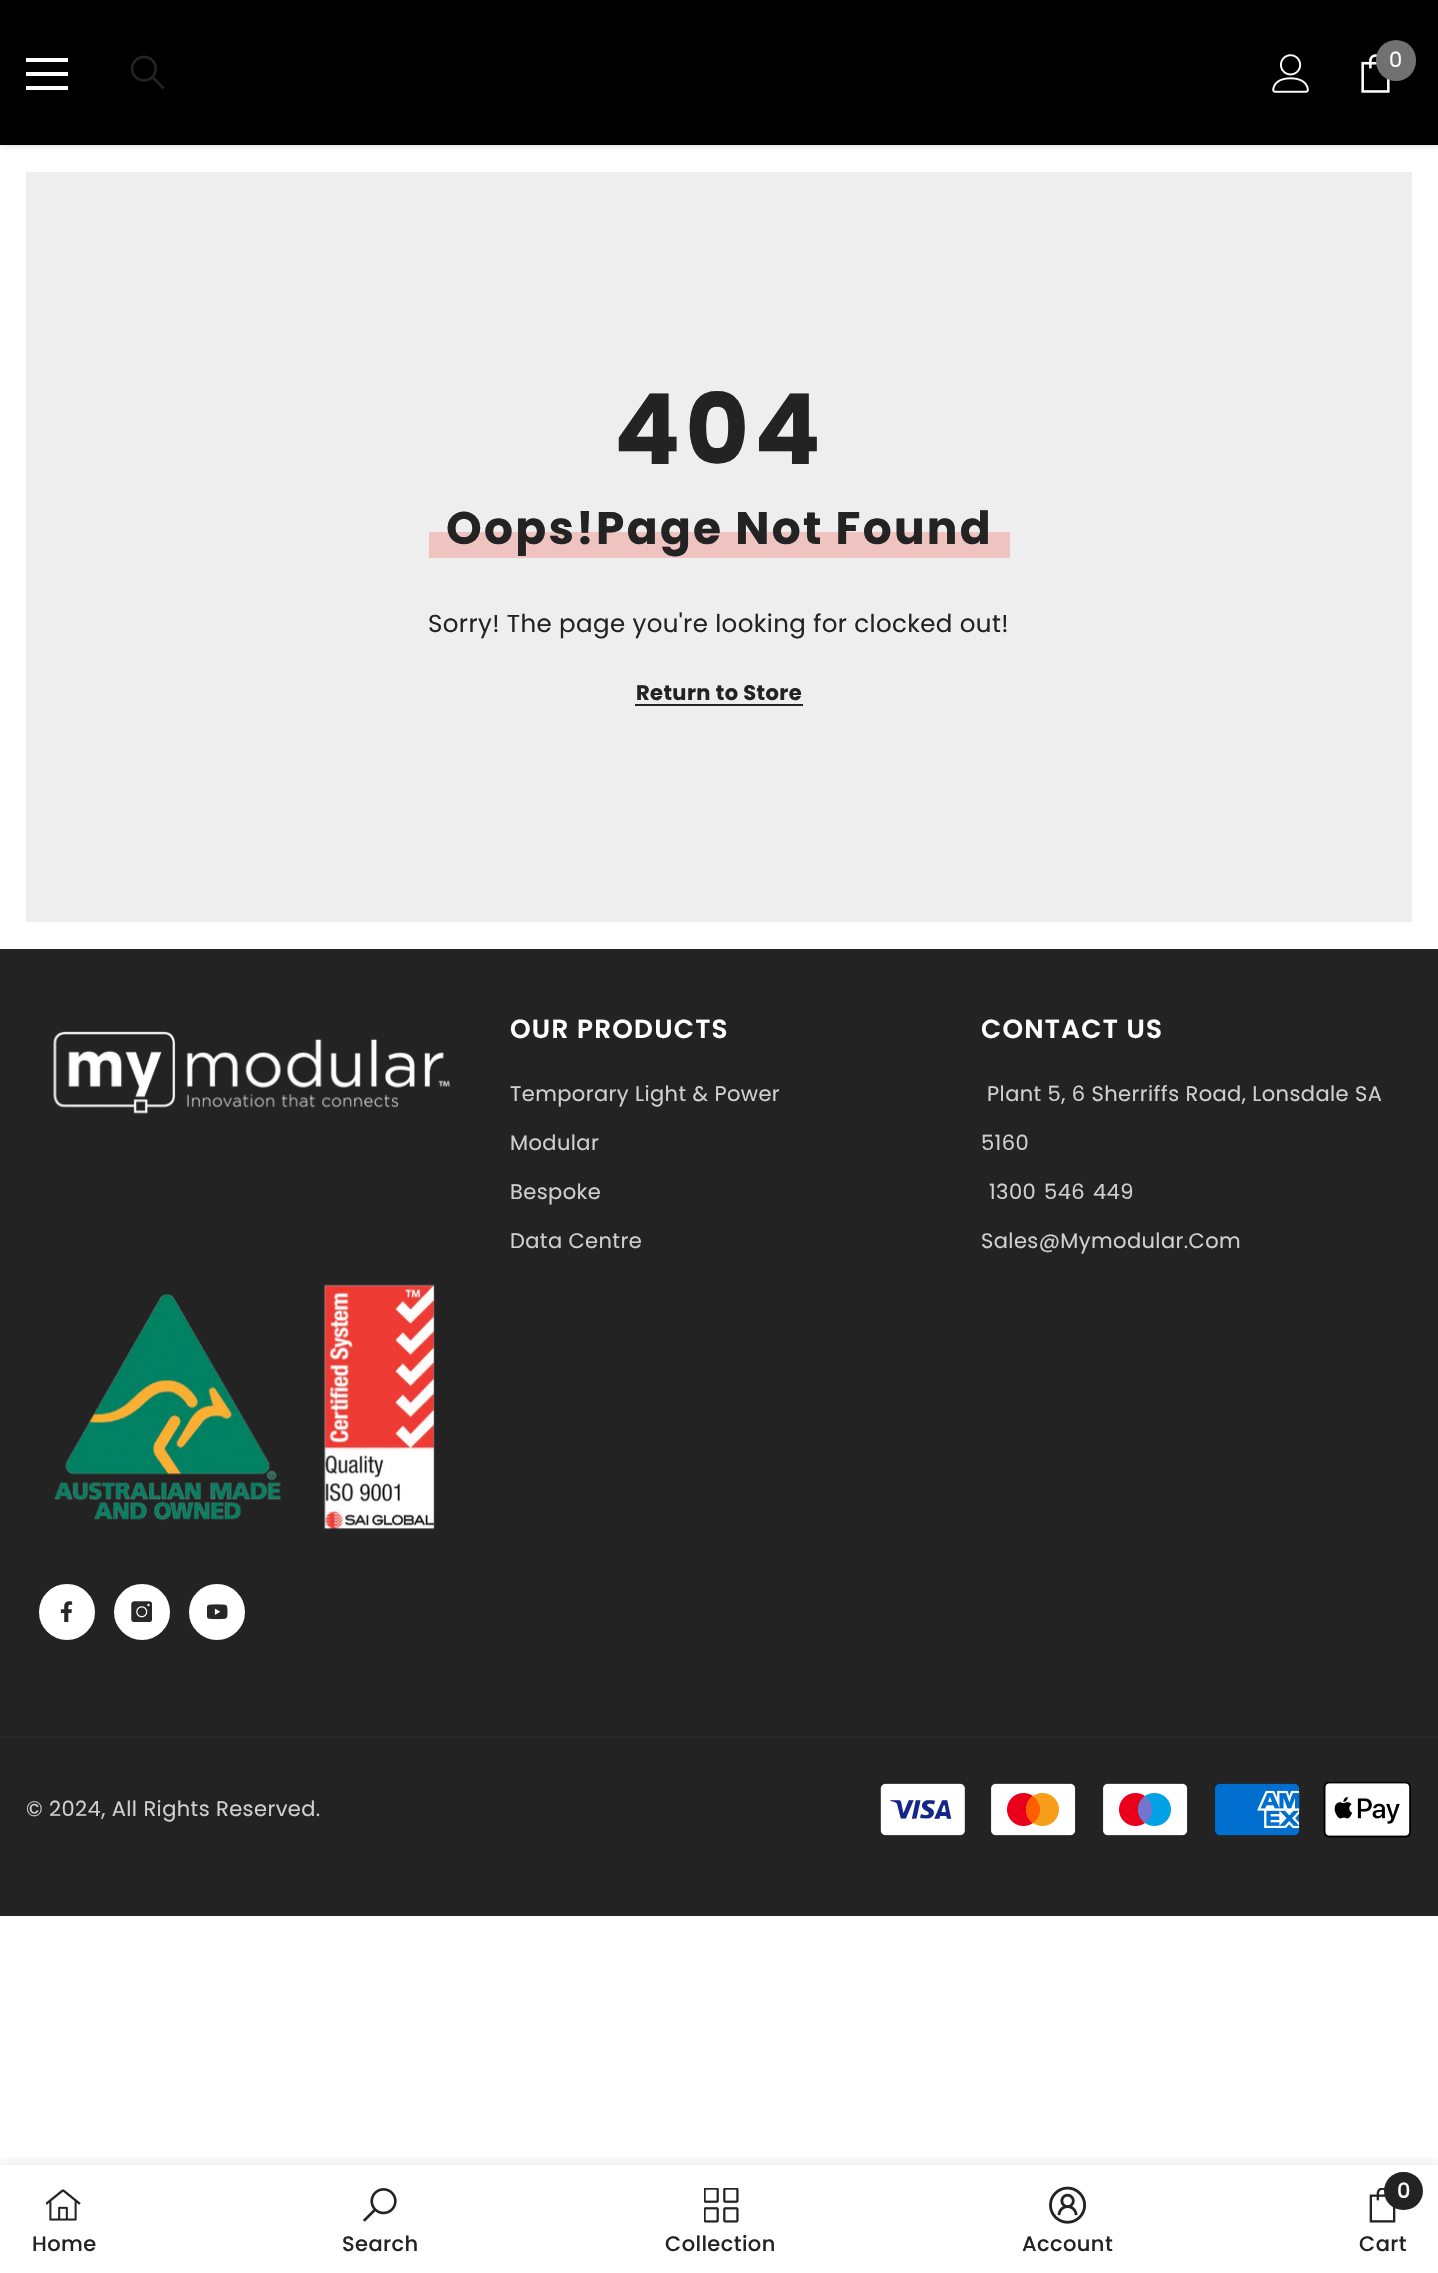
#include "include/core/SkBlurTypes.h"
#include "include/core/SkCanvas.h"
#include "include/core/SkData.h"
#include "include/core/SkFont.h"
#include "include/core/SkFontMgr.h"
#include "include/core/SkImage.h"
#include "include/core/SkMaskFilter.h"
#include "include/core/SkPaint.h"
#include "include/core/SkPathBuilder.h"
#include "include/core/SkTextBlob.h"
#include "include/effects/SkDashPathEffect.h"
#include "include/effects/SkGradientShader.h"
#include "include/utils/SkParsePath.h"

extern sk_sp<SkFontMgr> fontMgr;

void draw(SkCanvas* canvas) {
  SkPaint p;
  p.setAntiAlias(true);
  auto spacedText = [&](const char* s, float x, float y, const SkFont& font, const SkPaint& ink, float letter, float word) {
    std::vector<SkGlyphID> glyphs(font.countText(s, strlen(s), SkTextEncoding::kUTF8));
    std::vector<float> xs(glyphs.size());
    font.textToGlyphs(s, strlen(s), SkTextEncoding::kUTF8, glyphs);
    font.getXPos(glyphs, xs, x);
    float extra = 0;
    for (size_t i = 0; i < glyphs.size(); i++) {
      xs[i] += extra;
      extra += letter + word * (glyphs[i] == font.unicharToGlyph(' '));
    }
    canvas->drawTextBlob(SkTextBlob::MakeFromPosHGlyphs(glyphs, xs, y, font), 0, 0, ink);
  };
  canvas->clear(SK_ColorWHITE);
  p.setColor(SkColorSetARGB(26, 0, 0, 0));
  p.setMaskFilter(SkMaskFilter::MakeBlur(kNormal_SkBlurStyle, 2.5f));
  canvas->drawRect(SkRect::MakeLTRB(0, 2, 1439, 147), p);
  p.setMaskFilter(nullptr);
  p.setColor(SK_ColorBLACK);
  canvas->drawRect(SkRect::MakeLTRB(0, 0, 1438, 145), p);
  p.setColor(SK_ColorWHITE);
  canvas->drawRect(SkRect::MakeLTRB(26, 72, 68, 76), p);
  canvas->drawRect(SkRect::MakeLTRB(26, 58, 68, 62), p);
  canvas->drawRect(SkRect::MakeLTRB(26, 86, 68, 90), p);
  canvas->drawImageRect(SkImages::DeferredFromEncodedData(SkData::MakeFromFileName("images/1.png")), SkRect::MakeLTRB(130, 55, 165, 89), SkSamplingOptions());
  canvas->drawImageRect(SkImages::DeferredFromEncodedData(SkData::MakeFromFileName("images/2.png")), SkRect::MakeLTRB(1272, 54, 1309, 93), SkSamplingOptions());
  canvas->drawImageRect(SkImages::DeferredFromEncodedData(SkData::MakeFromFileName("images/3.png")), SkRect::MakeLTRB(1361, 54, 1390, 93), SkSamplingOptions());
  p.setColor(SkColorSetRGB(113, 113, 113));
  canvas->drawRoundRect(SkRect::MakeLTRB(1376, 40, 1416, 81), 20, 20, p);
  p.setColor(SkColorSetRGB(238, 238, 238));
  canvas->drawRect(SkRect::MakeLTRB(26, 172, 1412, 922), p);
  p.setColor(SkColorSetRGB(239, 195, 192));
  canvas->drawRect(SkRect::MakeLTRB(429, 532, 1010, 558), p);
  p.setColor(SkColorSetRGB(35, 35, 35));
  canvas->drawRect(SkRect::MakeLTRB(635, 704, 803, 706), p);
  canvas->drawRect(SkRect::MakeLTRB(0, 949, 1438, 1736), p);
  canvas->drawImageRect(SkImages::DeferredFromEncodedData(SkData::MakeFromFileName("images/4.png")), SkRect::MakeLTRB(53, 1031, 450, 1114), SkSamplingOptions());
  canvas->drawImageRect(SkImages::DeferredFromEncodedData(SkData::MakeFromFileName("images/5.png")), SkRect::MakeLTRB(54, 1284, 435, 1530), SkSamplingOptions());
  p.setColor(SK_ColorWHITE);
  canvas->drawCircle(67, 1612, 23.5f, p);
  p.setStyle(SkPaint::kStroke_Style);
  p.setStrokeWidth(9);
  canvas->drawCircle(67, 1612, 23.5f, p);
  canvas->drawImageRect(SkImages::DeferredFromEncodedData(SkData::MakeFromFileName("images/6.png")), SkRect::MakeLTRB(60, 1601, 73, 1622), SkSamplingOptions());
  p.setStyle(SkPaint::kFill_Style);
  canvas->drawCircle(142, 1612, 23.5f, p);
  p.setStyle(SkPaint::kStroke_Style);
  canvas->drawCircle(142, 1612, 23.5f, p);
  canvas->drawImageRect(SkImages::DeferredFromEncodedData(SkData::MakeFromFileName("images/7.png")), SkRect::MakeLTRB(131, 1601, 152, 1622), SkSamplingOptions());
  p.setStyle(SkPaint::kFill_Style);
  canvas->drawCircle(217, 1612, 23.5f, p);
  p.setStyle(SkPaint::kStroke_Style);
  canvas->drawCircle(217, 1612, 23.5f, p);
  canvas->drawImageRect(SkImages::DeferredFromEncodedData(SkData::MakeFromFileName("images/8.png")), SkRect::MakeLTRB(207, 1604, 228, 1620), SkSamplingOptions());
  p.setStyle(SkPaint::kFill_Style);
  p.setColor(SkColorSetRGB(35, 35, 35));
  canvas->drawRect(SkRect::MakeLTRB(0, 1738, 1438, 1916), p);
  p.setColor(SkColorSetRGB(40, 40, 40));
  canvas->drawRect(SkRect::MakeLTRB(0, 1736, 1438, 1738), p);
  canvas->drawImageRect(SkImages::DeferredFromEncodedData(SkData::MakeFromFileName("images/9.png")), SkRect::MakeLTRB(880, 1783, 965, 1836), SkSamplingOptions());
  canvas->drawImageRect(SkImages::DeferredFromEncodedData(SkData::MakeFromFileName("images/10.png")), SkRect::MakeLTRB(991, 1783, 1076, 1836), SkSamplingOptions());
  canvas->drawImageRect(SkImages::DeferredFromEncodedData(SkData::MakeFromFileName("images/11.png")), SkRect::MakeLTRB(1103, 1783, 1188, 1836), SkSamplingOptions());
  canvas->drawImageRect(SkImages::DeferredFromEncodedData(SkData::MakeFromFileName("images/12.png")), SkRect::MakeLTRB(1215, 1783, 1300, 1836), SkSamplingOptions());
  canvas->drawImageRect(SkImages::DeferredFromEncodedData(SkData::MakeFromFileName("images/13.png")), SkRect::MakeLTRB(1323, 1782, 1411, 1838), SkSamplingOptions());
  canvas->save();
  canvas->clipRect(SkRect::MakeLTRB(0, 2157, 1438, 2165));
  p.setColor(SkColorSetARGB(31, 0, 0, 0));
  p.setMaskFilter(SkMaskFilter::MakeBlur(kNormal_SkBlurStyle, 8));
  canvas->drawRect(SkRect::MakeLTRB(0, 2165, 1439, 2273), p);
  p.setMaskFilter(nullptr);
  canvas->restore();
  canvas->drawImageRect(SkImages::DeferredFromEncodedData(SkData::MakeFromFileName("images/14.png")), SkRect::MakeLTRB(46, 2189, 81, 2221), SkSamplingOptions());
  canvas->drawImageRect(SkImages::DeferredFromEncodedData(SkData::MakeFromFileName("images/15.png")), SkRect::MakeLTRB(363, 2188, 397, 2222), SkSamplingOptions());
  canvas->drawImageRect(SkImages::DeferredFromEncodedData(SkData::MakeFromFileName("images/16.png")), SkRect::MakeLTRB(704, 2188, 739, 2223), SkSamplingOptions());
  canvas->drawImageRect(SkImages::DeferredFromEncodedData(SkData::MakeFromFileName("images/17.png")), SkRect::MakeLTRB(1049, 2186, 1087, 2224), SkSamplingOptions());
  canvas->drawImageRect(SkImages::DeferredFromEncodedData(SkData::MakeFromFileName("images/18.png")), SkRect::MakeLTRB(1369, 2188, 1396, 2223), SkSamplingOptions());
  p.setColor(SkColorSetRGB(35, 35, 35));
  canvas->drawRoundRect(SkRect::MakeLTRB(1384, 2172, 1423, 2210), 19, 19, p);
  SkFont font1(fontMgr->matchFamilyStyle("Poppins", SkFontStyle::Normal()), 21);
  font1.setSubpixel(true);
  p.setColor(SK_ColorWHITE);
  canvas->drawString("0", 1389, 67, font1, p);
  SkFont font2(fontMgr->matchFamilyStyle("Poppins", SkFontStyle::Bold()), 98);
  font2.setSubpixel(true);
  p.setColor(SkColorSetRGB(35, 35, 35));
  spacedText("404", 614, 464, font2, p, 5, 0);
  SkFont font3(fontMgr->matchFamilyStyle("Poppins", SkFontStyle::Bold()), 45.5f);
  font3.setSubpixel(true);
  spacedText("Oops!Page Not Found", 446, 544, font3, p, 2.25f, 0);
  SkFont font4(fontMgr->matchFamilyStyle("Poppins", SkFontStyle::Normal()), 24.5f);
  font4.setSubpixel(true);
  spacedText("Sorry! The page you're looking for clocked out!", 428, 632, font4, p, 0.4f, 0);
  SkFont font5(fontMgr->matchFamilyStyle("Poppins", SkFontStyle::Bold()), 21);
  font5.setSubpixel(true);
  spacedText("Return to Store", 636, 700, font5, p, 0.4f, 0);
  SkFont font6(fontMgr->matchFamilyStyle("Poppins", SkFontStyle(600, SkFontStyle::kNormal_Width, SkFontStyle::kUpright_Slant)), 26.25f);
  font6.setSubpixel(true);
  p.setColor(SK_ColorWHITE);
  spacedText("OUR PRODUCTS", 510, 1038, font6, p, 1.25f, 0);
  p.setColor(SkColorSetRGB(207, 207, 207));
  spacedText("Temporary Light & Power", 510, 1101, font1, p, 0.4f, 0);
  spacedText("Modular", 510, 1150, font1, p, 0.4f, 0);
  spacedText("Bespoke", 510, 1199, font1, p, 0.4f, 0);
  spacedText("Data Centre", 510, 1248, font1, p, 0.4f, 0);
  p.setColor(SK_ColorWHITE);
  spacedText("CONTACT US", 981, 1038, font6, p, 1.25f, 0);
  p.setColor(SkColorSetRGB(207, 207, 207));
  spacedText("Plant 5, 6 Sherriffs Road, Lonsdale SA", 987, 1101, font1, p, 0.4f, 0);
  spacedText("5160", 981, 1150, font1, p, 0.4f, 0);
  spacedText("1300 546 449", 989, 1199, font1, p, 0.4f, 2);
  spacedText("Sales@Mymodular.Com", 981, 1248, font1, p, 0.4f, 0);
  spacedText("© 2024, All Rights Reserved.", 26, 1816, font1, p, 0.4f, 0);
  SkFont font7(fontMgr->matchFamilyStyle("Poppins", SkFontStyle(500, SkFontStyle::kNormal_Width, SkFontStyle::kUpright_Slant)), 21);
  font7.setSubpixel(true);
  p.setColor(SkColorSetRGB(35, 35, 35));
  spacedText("Home", 32, 2251, font7, p, 0.4f, 0);
  spacedText("Search", 342, 2251, font7, p, 0.4f, 0);
  spacedText("Collection", 665, 2251, font7, p, 0.4f, 0);
  spacedText("Account", 1022, 2251, font7, p, 0.4f, 0);
  p.setColor(SK_ColorWHITE);
  canvas->drawString("0", 1397, 2198, font7, p);
  p.setColor(SkColorSetRGB(35, 35, 35));
  spacedText("Cart", 1359, 2251, font7, p, 0.4f, 0);
}
